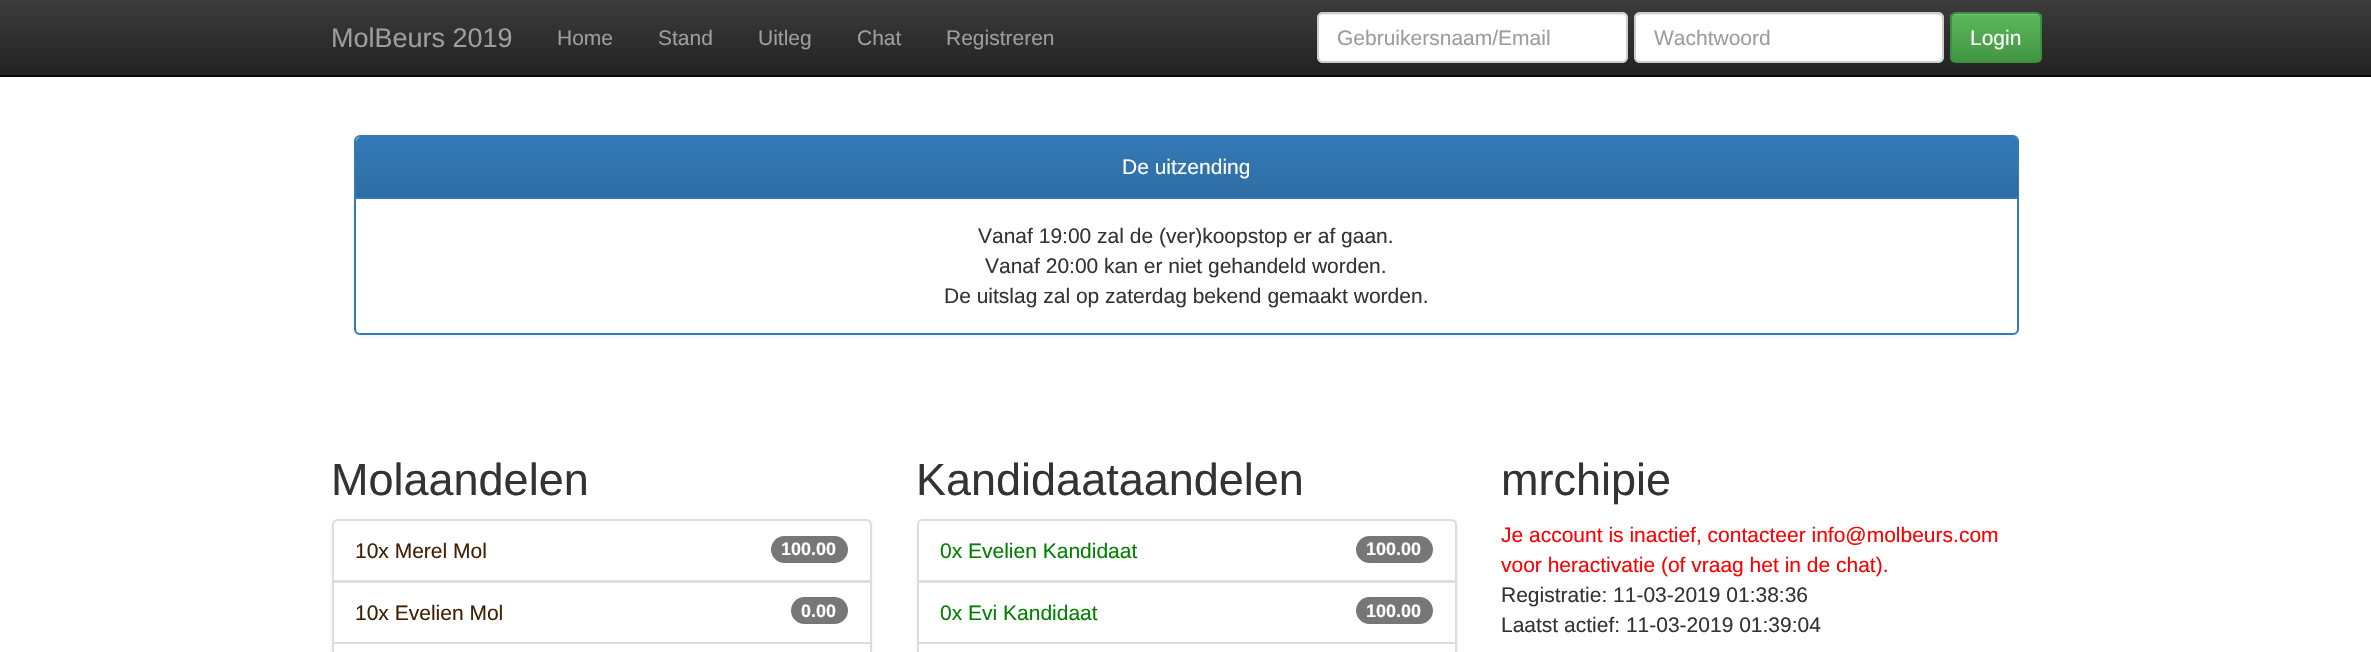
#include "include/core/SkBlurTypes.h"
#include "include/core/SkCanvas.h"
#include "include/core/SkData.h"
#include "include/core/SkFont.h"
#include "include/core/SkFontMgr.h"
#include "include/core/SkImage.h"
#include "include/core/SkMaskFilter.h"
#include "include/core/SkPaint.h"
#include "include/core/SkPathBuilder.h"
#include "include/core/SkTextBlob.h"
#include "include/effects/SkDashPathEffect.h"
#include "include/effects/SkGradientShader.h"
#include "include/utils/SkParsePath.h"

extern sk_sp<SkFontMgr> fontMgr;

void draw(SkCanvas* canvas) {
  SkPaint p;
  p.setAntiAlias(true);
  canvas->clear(SK_ColorWHITE);
  {
    const SkColor colors[] = {SkColorSetRGB(60, 60, 60), SkColorSetRGB(34, 34, 34)};
    const float stops[] = {0, 1};
    const SkPoint ends[] = {{1186, 0}, {1186, 75}};
    p.setShader(SkGradientShader::MakeLinear(ends, colors, stops, 2, SkTileMode::kClamp));
    p.setAlpha(255);
  }
  canvas->drawRect(SkRect::MakeLTRB(0, 0, 2371, 75), p);
  p.setShader(nullptr);
  p.setColor(SkColorSetRGB(8, 8, 8));
  canvas->drawRect(SkRect::MakeLTRB(0, 75, 2371, 77), p);
  p.setColor(SK_ColorWHITE);
  canvas->drawRoundRect(SkRect::MakeLTRB(1317, 12, 1628, 63), 6, 6, p);
  p.setColor(SkColorSetRGB(236, 236, 236));
  canvas->drawPath(SkPathBuilder().moveTo(1323, 15).lineTo(1622, 15).cubicTo(1624, 15, 1626, 17, 1626, 20).lineTo(1626, 19).cubicTo(1626, 16, 1624, 14, 1621, 14).lineTo(1324, 14).cubicTo(1322, 14, 1321, 15, 1320, 16).close().detach(), p);
  p.setStyle(SkPaint::kStroke_Style);
  p.setStrokeWidth(2);
  p.setColor(SkColorSetRGB(204, 204, 204));
  canvas->drawRoundRect(SkRect::MakeLTRB(1318, 13, 1627, 62), 5, 5, p);
  p.setStyle(SkPaint::kFill_Style);
  p.setColor(SK_ColorWHITE);
  canvas->drawRoundRect(SkRect::MakeLTRB(1634, 12, 1944, 63), 6, 6, p);
  p.setColor(SkColorSetRGB(236, 236, 236));
  canvas->drawPath(SkPathBuilder().moveTo(1640, 15).lineTo(1938, 15).cubicTo(1940, 15, 1942, 17, 1942, 20).lineTo(1942, 58).lineTo(1941, 61).cubicTo(1942, 60, 1943, 58, 1943, 57).lineTo(1943, 19).cubicTo(1943, 16, 1941, 14, 1938, 14).lineTo(1640, 14).cubicTo(1637, 14, 1635, 16, 1635, 19).lineTo(1635, 20).cubicTo(1635, 17, 1637, 15, 1640, 15).close().detach(), p);
  p.setStyle(SkPaint::kStroke_Style);
  p.setColor(SkColorSetRGB(204, 204, 204));
  canvas->drawRoundRect(SkRect::MakeLTRB(1635, 13, 1943, 62), 5, 5, p);
  canvas->save();
  canvas->clipPath(SkPathBuilder().moveTo(1956, 12).lineTo(2036, 12).cubicTo(2039.5f, 12, 2042, 14.5f, 2042, 18).lineTo(2042, 57).cubicTo(2042, 60.5f, 2039.5f, 63, 2036, 63).lineTo(1956, 63).cubicTo(1952.5f, 63, 1950, 60.5f, 1950, 57).lineTo(1950, 18).cubicTo(1950, 14.5f, 1952.5f, 12, 1956, 12).close().detach(), true);
  p.setStyle(SkPaint::kFill_Style);
  {
    const SkColor colors[] = {SkColorSetRGB(92, 184, 92), SkColorSetRGB(65, 150, 65)};
    const float stops[] = {0, 1};
    const SkPoint ends[] = {{1996, 13}, {1996, 62}};
    p.setShader(SkGradientShader::MakeLinear(ends, colors, stops, 2, SkTileMode::kClamp));
    p.setAlpha(255);
  }
  canvas->drawRect(SkRect::MakeLTRB(1950, 14, 2042, 62), p);
  canvas->restore();
  p.setShader(nullptr);
  p.setColor(SkColorSetRGB(116, 194, 116));
  canvas->drawPath(SkPathBuilder().moveTo(1956, 15).lineTo(2036, 15).cubicTo(2038, 15, 2040, 17, 2040, 20).cubicTo(2040, 11, 2028, 14, 2022, 14).lineTo(1970, 14).cubicTo(1964, 14, 1952, 11, 1952, 20).cubicTo(1952, 17, 1954, 15, 1956, 15).close().detach(), p);
  p.setStyle(SkPaint::kStroke_Style);
  p.setColor(SkColorSetRGB(62, 143, 62));
  canvas->drawRoundRect(SkRect::MakeLTRB(1951, 13, 2041, 62), 5, 5, p);
  p.setStyle(SkPaint::kFill_Style);
  p.setColor(SkColorSetARGB(13, 0, 0, 0));
  p.setMaskFilter(SkMaskFilter::MakeBlur(kNormal_SkBlurStyle, 1.5f));
  canvas->drawRoundRect(SkRect::MakeLTRB(354, 137, 2019, 336), 6, 6, p);
  p.setMaskFilter(nullptr);
  p.setColor(SK_ColorWHITE);
  canvas->drawRoundRect(SkRect::MakeLTRB(355, 136, 2018, 334), 5, 5, p);
  p.setStyle(SkPaint::kStroke_Style);
  p.setColor(SkColorSetRGB(51, 122, 183));
  canvas->drawRoundRect(SkRect::MakeLTRB(355, 136, 2018, 334), 5, 5, p);
  p.setStyle(SkPaint::kFill_Style);
  {
    const SkColor colors[] = {SkColorSetRGB(51, 122, 183), SkColorSetRGB(46, 109, 164)};
    const float stops[] = {0, 1};
    const SkPoint ends[] = {{1187, 136}, {1187, 197}};
    p.setShader(SkGradientShader::MakeLinear(ends, colors, stops, 2, SkTileMode::kClamp));
    p.setAlpha(255);
  }
  canvas->drawPath(SkPathBuilder().moveTo(361, 137).lineTo(2013, 137).cubicTo(2016, 137, 2018, 139, 2018, 142).lineTo(2018, 197).lineTo(356, 197).lineTo(356, 142).cubicTo(356, 139, 358, 137, 361, 137).close().detach(), p);
  p.setShader(nullptr);
  p.setColor(SkColorSetRGB(51, 122, 183));
  canvas->drawRect(SkRect::MakeLTRB(356, 197, 2018, 199), p);
  p.setColor(SkColorSetARGB(18, 0, 0, 0));
  p.setMaskFilter(SkMaskFilter::MakeBlur(kNormal_SkBlurStyle, 1.5f));
  canvas->drawRoundRect(SkRect::MakeLTRB(332, 521, 872, 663), 6, 6, p);
  p.setMaskFilter(nullptr);
  p.setColor(SK_ColorWHITE);
  canvas->drawPath(SkPathBuilder().moveTo(338, 520).lineTo(866, 520).cubicTo(869, 520, 871, 522, 871, 525).lineTo(871, 581).lineTo(333, 581).lineTo(333, 525).cubicTo(333, 522, 335, 520, 338, 520).close().detach(), p);
  p.setStyle(SkPaint::kStroke_Style);
  p.setColor(SkColorSetRGB(221, 221, 221));
  canvas->drawPath(SkPathBuilder().moveTo(338, 520).lineTo(866, 520).cubicTo(869, 520, 871, 522, 871, 525).lineTo(871, 581).lineTo(333, 581).lineTo(333, 525).cubicTo(333, 522, 335, 520, 338, 520).close().detach(), p);
  p.setStyle(SkPaint::kFill_Style);
  p.setColor(SkColorSetRGB(119, 119, 119));
  canvas->drawRoundRect(SkRect::MakeLTRB(771, 536, 848, 563), 13.5f, 13.5f, p);
  p.setColor(SK_ColorWHITE);
  canvas->drawRect(SkRect::MakeLTRB(333, 582, 871, 643), p);
  p.setStyle(SkPaint::kStroke_Style);
  p.setColor(SkColorSetRGB(221, 221, 221));
  canvas->drawRect(SkRect::MakeLTRB(333, 582, 871, 643), p);
  p.setStyle(SkPaint::kFill_Style);
  p.setColor(SkColorSetRGB(119, 119, 119));
  canvas->drawRoundRect(SkRect::MakeLTRB(791, 597, 848, 624), 13.5f, 13.5f, p);
  p.setColor(SK_ColorWHITE);
  canvas->drawRect(SkRect::MakeLTRB(333, 643, 871, 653), p);
  p.setStyle(SkPaint::kStroke_Style);
  p.setColor(SkColorSetRGB(221, 221, 221));
  canvas->drawRect(SkRect::MakeLTRB(333, 643, 871, 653), p);
  p.setStyle(SkPaint::kFill_Style);
  p.setColor(SkColorSetARGB(18, 0, 0, 0));
  p.setMaskFilter(SkMaskFilter::MakeBlur(kNormal_SkBlurStyle, 1.5f));
  canvas->drawRoundRect(SkRect::MakeLTRB(917, 521, 1457, 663), 6, 6, p);
  p.setMaskFilter(nullptr);
  p.setColor(SK_ColorWHITE);
  canvas->drawPath(SkPathBuilder().moveTo(923, 520).lineTo(1451, 520).cubicTo(1454, 520, 1456, 522, 1456, 525).lineTo(1456, 581).lineTo(918, 581).lineTo(918, 525).cubicTo(918, 522, 920, 520, 923, 520).close().detach(), p);
  p.setStyle(SkPaint::kStroke_Style);
  p.setColor(SkColorSetRGB(221, 221, 221));
  canvas->drawPath(SkPathBuilder().moveTo(923, 520).lineTo(1451, 520).cubicTo(1454, 520, 1456, 522, 1456, 525).lineTo(1456, 581).lineTo(918, 581).lineTo(918, 525).cubicTo(918, 522, 920, 520, 923, 520).close().detach(), p);
  p.setStyle(SkPaint::kFill_Style);
  p.setColor(SkColorSetRGB(119, 119, 119));
  canvas->drawRoundRect(SkRect::MakeLTRB(1356, 536, 1433, 563), 13.5f, 13.5f, p);
  p.setColor(SK_ColorWHITE);
  canvas->drawRect(SkRect::MakeLTRB(918, 582, 1456, 643), p);
  p.setStyle(SkPaint::kStroke_Style);
  p.setColor(SkColorSetRGB(221, 221, 221));
  canvas->drawRect(SkRect::MakeLTRB(918, 582, 1456, 643), p);
  p.setStyle(SkPaint::kFill_Style);
  p.setColor(SkColorSetRGB(119, 119, 119));
  canvas->drawRoundRect(SkRect::MakeLTRB(1356, 597, 1433, 624), 13.5f, 13.5f, p);
  p.setColor(SK_ColorWHITE);
  canvas->drawRect(SkRect::MakeLTRB(918, 643, 1456, 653), p);
  p.setStyle(SkPaint::kStroke_Style);
  p.setColor(SkColorSetRGB(221, 221, 221));
  canvas->drawRect(SkRect::MakeLTRB(918, 643, 1456, 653), p);
  SkFont font1(fontMgr->matchFamilyStyle("Liberation Sans", SkFontStyle::Normal()), 27);
  font1.setSubpixel(true);
  p.setStyle(SkPaint::kFill_Style);
  p.setColor(SkColorSetRGB(157, 157, 157));
  canvas->drawString("MolBeurs 2019", 331, 47, font1, p);
  SkFont font2(fontMgr->matchFamilyStyle("Liberation Sans", SkFontStyle::Normal()), 21);
  font2.setSubpixel(true);
  canvas->drawString("Home", 557, 45, font2, p);
  canvas->drawString("Stand", 658, 45, font2, p);
  canvas->drawString("Uitleg", 758, 45, font2, p);
  canvas->drawString("Chat", 857, 45, font2, p);
  canvas->drawString("Registreren", 946, 45, font2, p);
  canvas->drawString("Gebruikersnaam/Email", 1337, 45, font2, p);
  canvas->drawString("Wachtwoord", 1654, 45, font2, p);
  p.setColor(SK_ColorWHITE);
  canvas->drawString("Login", 1970, 45, font2, p);
  canvas->drawString("De uitzending", 1122, 174, font2, p);
  p.setColor(SkColorSetRGB(51, 51, 51));
  canvas->drawString("Vanaf 19:00 zal de (ver)koopstop er af gaan.", 978, 243, font2, p);
  canvas->drawString("Vanaf 20:00 kan er niet gehandeld worden.", 985, 273, font2, p);
  canvas->drawString("De uitslag zal op zaterdag bekend gemaakt worden.", 944, 303, font2, p);
  SkFont font3(fontMgr->matchFamilyStyle("Liberation Sans", SkFontStyle::Normal()), 45);
  font3.setSubpixel(true);
  canvas->drawString("Molaandelen", 331, 495, font3, p);
  p.setColor(SkColorSetRGB(65, 32, 1));
  canvas->drawString("10x Merel Mol", 355, 558, font2, p);
  SkFont font4(fontMgr->matchFamilyStyle("Liberation Sans", SkFontStyle::Bold()), 18);
  font4.setSubpixel(true);
  p.setColor(SK_ColorWHITE);
  canvas->drawString("100.00", 781, 555, font4, p);
  p.setColor(SkColorSetRGB(65, 32, 1));
  canvas->drawString("10x Evelien Mol", 355, 620, font2, p);
  p.setColor(SK_ColorWHITE);
  canvas->drawString("0.00", 801, 617, font4, p);
  p.setColor(SkColorSetRGB(51, 51, 51));
  canvas->drawString("Kandidaataandelen", 916, 495, font3, p);
  p.setColor(SkColorSetRGB(0, 128, 1));
  canvas->drawString("0x Evelien Kandidaat", 940, 558, font2, p);
  p.setColor(SK_ColorWHITE);
  canvas->drawString("100.00", 1366, 555, font4, p);
  p.setColor(SkColorSetRGB(0, 128, 1));
  canvas->drawString("0x Evi Kandidaat", 940, 620, font2, p);
  p.setColor(SK_ColorWHITE);
  canvas->drawString("100.00", 1366, 617, font4, p);
  p.setColor(SkColorSetRGB(51, 51, 51));
  canvas->drawString("mrchipie", 1501, 495, font3, p);
  p.setColor(SkColorSetRGB(255, 0, 0));
  canvas->drawString("Je account is inactief, contacteer info@molbeurs.com", 1501, 542, font2, p);
  canvas->drawString("voor heractivatie (of vraag het in de chat).", 1501, 572, font2, p);
  p.setColor(SkColorSetRGB(51, 51, 51));
  canvas->drawString("Registratie: 11-03-2019 01:38:36", 1501, 602, font2, p);
  canvas->drawString("Laatst actief: 11-03-2019 01:39:04", 1501, 632, font2, p);
}
